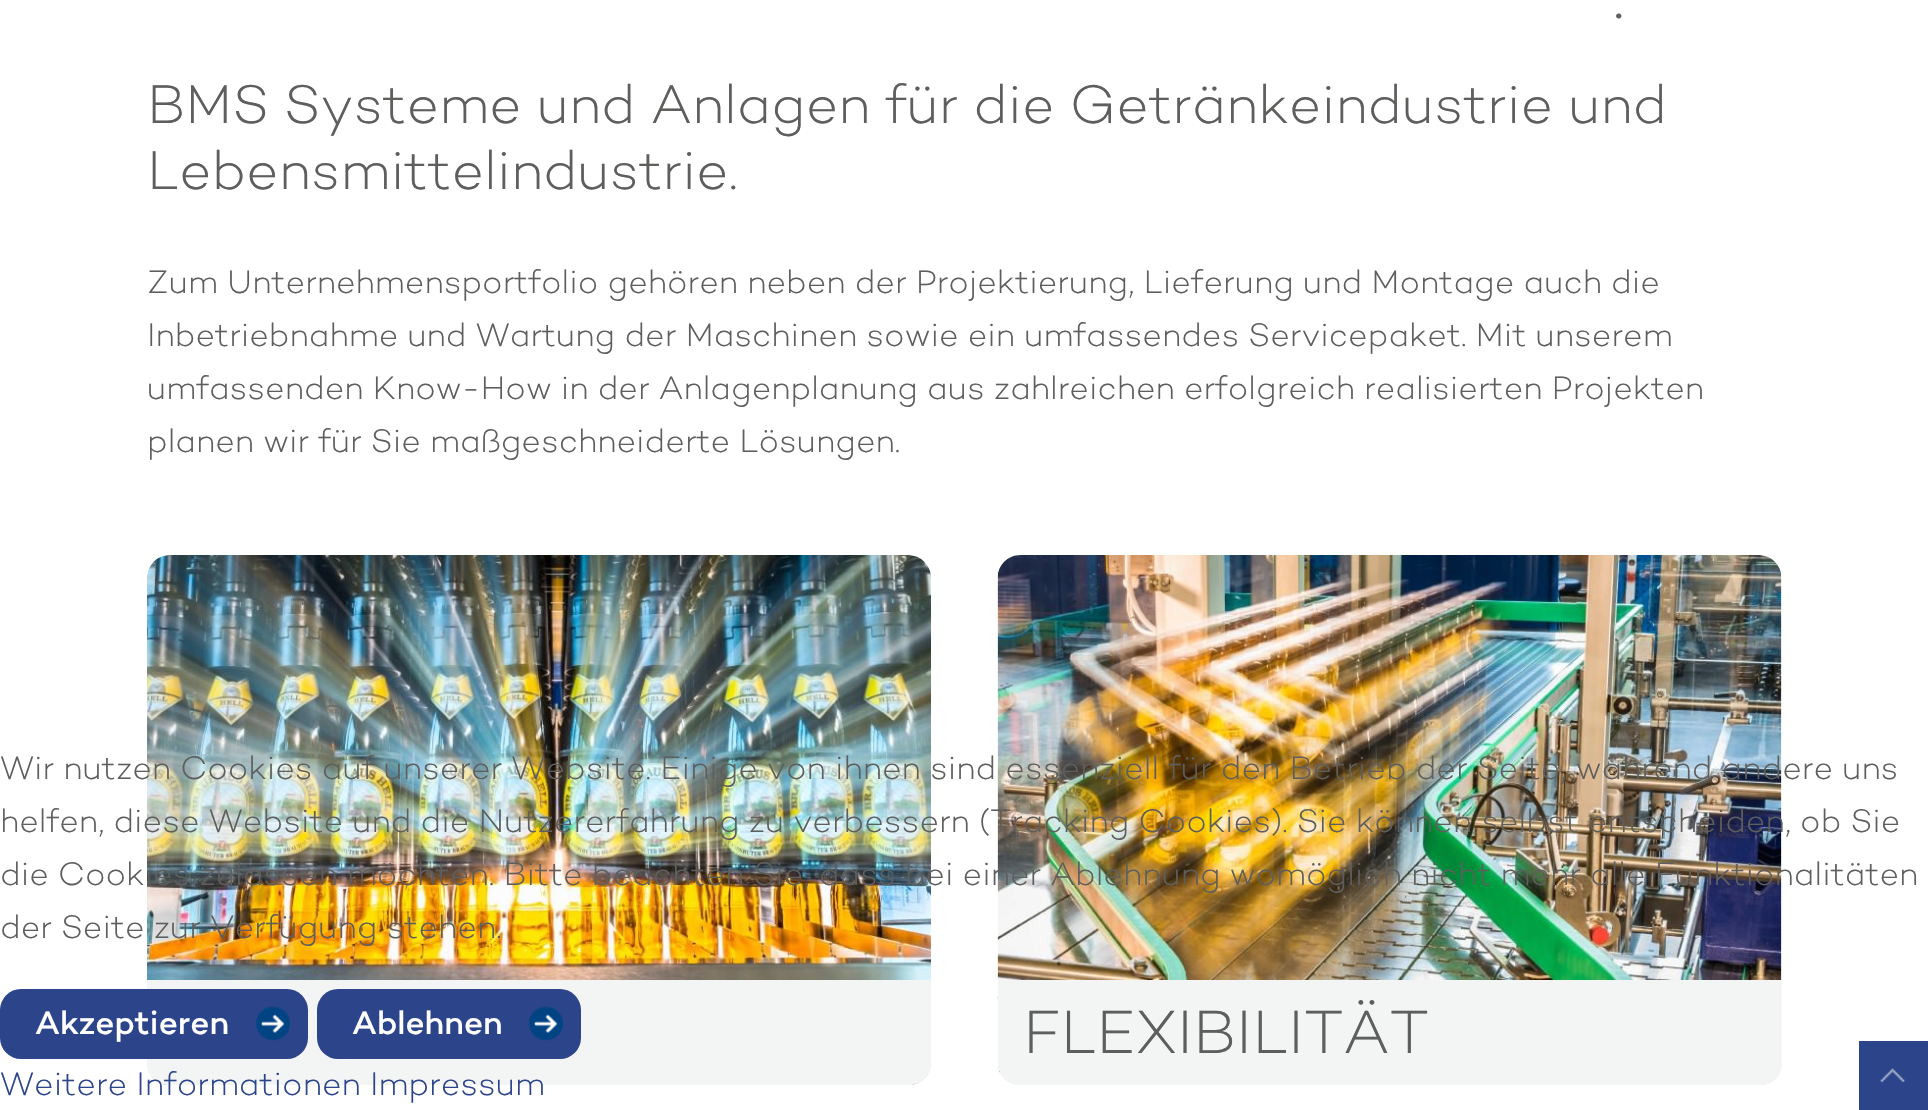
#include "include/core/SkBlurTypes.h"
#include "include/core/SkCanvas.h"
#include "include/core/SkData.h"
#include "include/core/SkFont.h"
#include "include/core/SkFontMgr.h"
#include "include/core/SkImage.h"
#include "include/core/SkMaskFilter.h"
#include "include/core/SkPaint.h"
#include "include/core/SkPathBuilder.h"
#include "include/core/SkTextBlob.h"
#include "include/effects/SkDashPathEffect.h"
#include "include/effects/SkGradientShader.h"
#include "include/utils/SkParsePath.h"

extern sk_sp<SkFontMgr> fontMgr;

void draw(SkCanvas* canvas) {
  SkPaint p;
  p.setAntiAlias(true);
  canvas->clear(SK_ColorWHITE);
  canvas->drawImageRect(SkImages::DeferredFromEncodedData(SkData::MakeFromFileName("images/1.png")), SkRect::MakeLTRB(147, 555, 931, 1085), SkSamplingOptions());
  p.setColor(SkColorSetRGB(243, 244, 244));
  canvas->drawPath(SkPathBuilder().moveTo(147, 980).lineTo(931, 980).lineTo(931, 1064).cubicTo(931, 1075.5f, 921.5f, 1085, 910, 1085).lineTo(168, 1085).cubicTo(156.5f, 1085, 147, 1075.5f, 147, 1064).close().detach(), p);
  canvas->drawImageRect(SkImages::DeferredFromEncodedData(SkData::MakeFromFileName("images/2.png")), SkRect::MakeLTRB(997, 555, 1782, 1085), SkSamplingOptions());
  canvas->drawPath(SkPathBuilder().moveTo(998, 980).lineTo(1782, 980).lineTo(1782, 1064).cubicTo(1782, 1075.5f, 1772.5f, 1085, 1761, 1085).lineTo(1019, 1085).cubicTo(1007.5f, 1085, 998, 1075.5f, 998, 1064).close().detach(), p);
  p.setColor(SkColorSetRGB(43, 68, 138));
  canvas->drawRect(SkRect::MakeLTRB(1859, 1041, 1928, 1110), p);
  canvas->drawImageRect(SkImages::DeferredFromEncodedData(SkData::MakeFromFileName("images/3.png")), SkRect::MakeLTRB(1880, 1068, 1905, 1083), SkSamplingOptions());
  canvas->drawRoundRect(SkRect::MakeLTRB(0, 989, 308, 1059), 21, 21, p);
  canvas->drawImageRect(SkImages::DeferredFromEncodedData(SkData::MakeFromFileName("images/4.png")), SkRect::MakeLTRB(255, 1006, 290, 1041), SkSamplingOptions());
  canvas->drawRoundRect(SkRect::MakeLTRB(317, 989, 581, 1059), 21, 21, p);
  canvas->drawImageRect(SkImages::DeferredFromEncodedData(SkData::MakeFromFileName("images/4.png")), SkRect::MakeLTRB(528, 1006, 563, 1041), SkSamplingOptions());
  SkFont font1(fontMgr->matchFamilyStyle("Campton", SkFontStyle(300, SkFontStyle::kNormal_Width, SkFontStyle::kUpright_Slant)), 70);
  font1.setSubpixel(true);
  p.setColor(SkColorSetRGB(94, 94, 93));
  canvas->drawString(".", 1613, 18, font1, p);
  SkFont font2(fontMgr->matchFamilyStyle("Campton", SkFontStyle(300, SkFontStyle::kNormal_Width, SkFontStyle::kUpright_Slant)), 55.4f);
  font2.setSubpixel(true);
  canvas->drawString("BMS Systeme und Anlagen für die Getränkeindustrie und", 147, 123, font2, p);
  canvas->drawString("Lebensmittelindustrie.", 147, 189, font2, p);
  SkFont font3(fontMgr->matchFamilyStyle("Campton", SkFontStyle(300, SkFontStyle::kNormal_Width, SkFontStyle::kUpright_Slant)), 33.25f);
  font3.setSubpixel(true);
  canvas->drawString("Zum Unternehmensportfolio gehören neben der Projektierung, Lieferung und Montage auch die", 147, 293, font3, p);
  canvas->drawString("Inbetriebnahme und Wartung der Maschinen sowie ein umfassendes Servicepaket. Mit unserem", 147, 346, font3, p);
  canvas->drawString("umfassenden Know-How in der Anlagenplanung aus zahlreichen erfolgreich realisierten Projekten", 147, 399, font3, p);
  canvas->drawString("planen wir für Sie maßgeschneiderte Lösungen.", 147, 452, font3, p);
  SkFont font4(fontMgr->matchFamilyStyle("Campton", SkFontStyle(300, SkFontStyle::kNormal_Width, SkFontStyle::kUpright_Slant)), 62.25f);
  font4.setSubpixel(true);
  canvas->drawString("FLEXIBILITÄT", 1023, 1053, font4, p);
  canvas->drawString("Wir nutzen Cookies auf unserer Website. Einige von ihnen sind essenziell für den Betrieb der Seite, während andere uns", 0, 779, font3, p);
  canvas->drawString("helfen, diese Website und die Nutzererfahrung zu verbessern (Tracking Cookies). Sie können selbst entscheiden, ob Sie", 0, 832, font3, p);
  canvas->drawString("die Cookies zulassen möchten. Bitte beachten Sie, dass bei einer Ablehnung womöglich nicht mehr alle Funktionalitäten", 0, 885, font3, p);
  canvas->drawString("der Seite zur Verfügung stehen.", 0, 938, font3, p);
  SkFont font5(fontMgr->matchFamilyStyle("Campton", SkFontStyle(500, SkFontStyle::kNormal_Width, SkFontStyle::kUpright_Slant)), 33.25f);
  font5.setSubpixel(true);
  p.setColor(SK_ColorWHITE);
  canvas->drawString("Akzeptieren", 35, 1034, font5, p);
  canvas->drawString("Ablehnen", 352, 1034, font5, p);
  p.setColor(SkColorSetRGB(43, 68, 138));
  canvas->drawString("Weitere Informationen Impressum", 0, 1095, font3, p);
}
